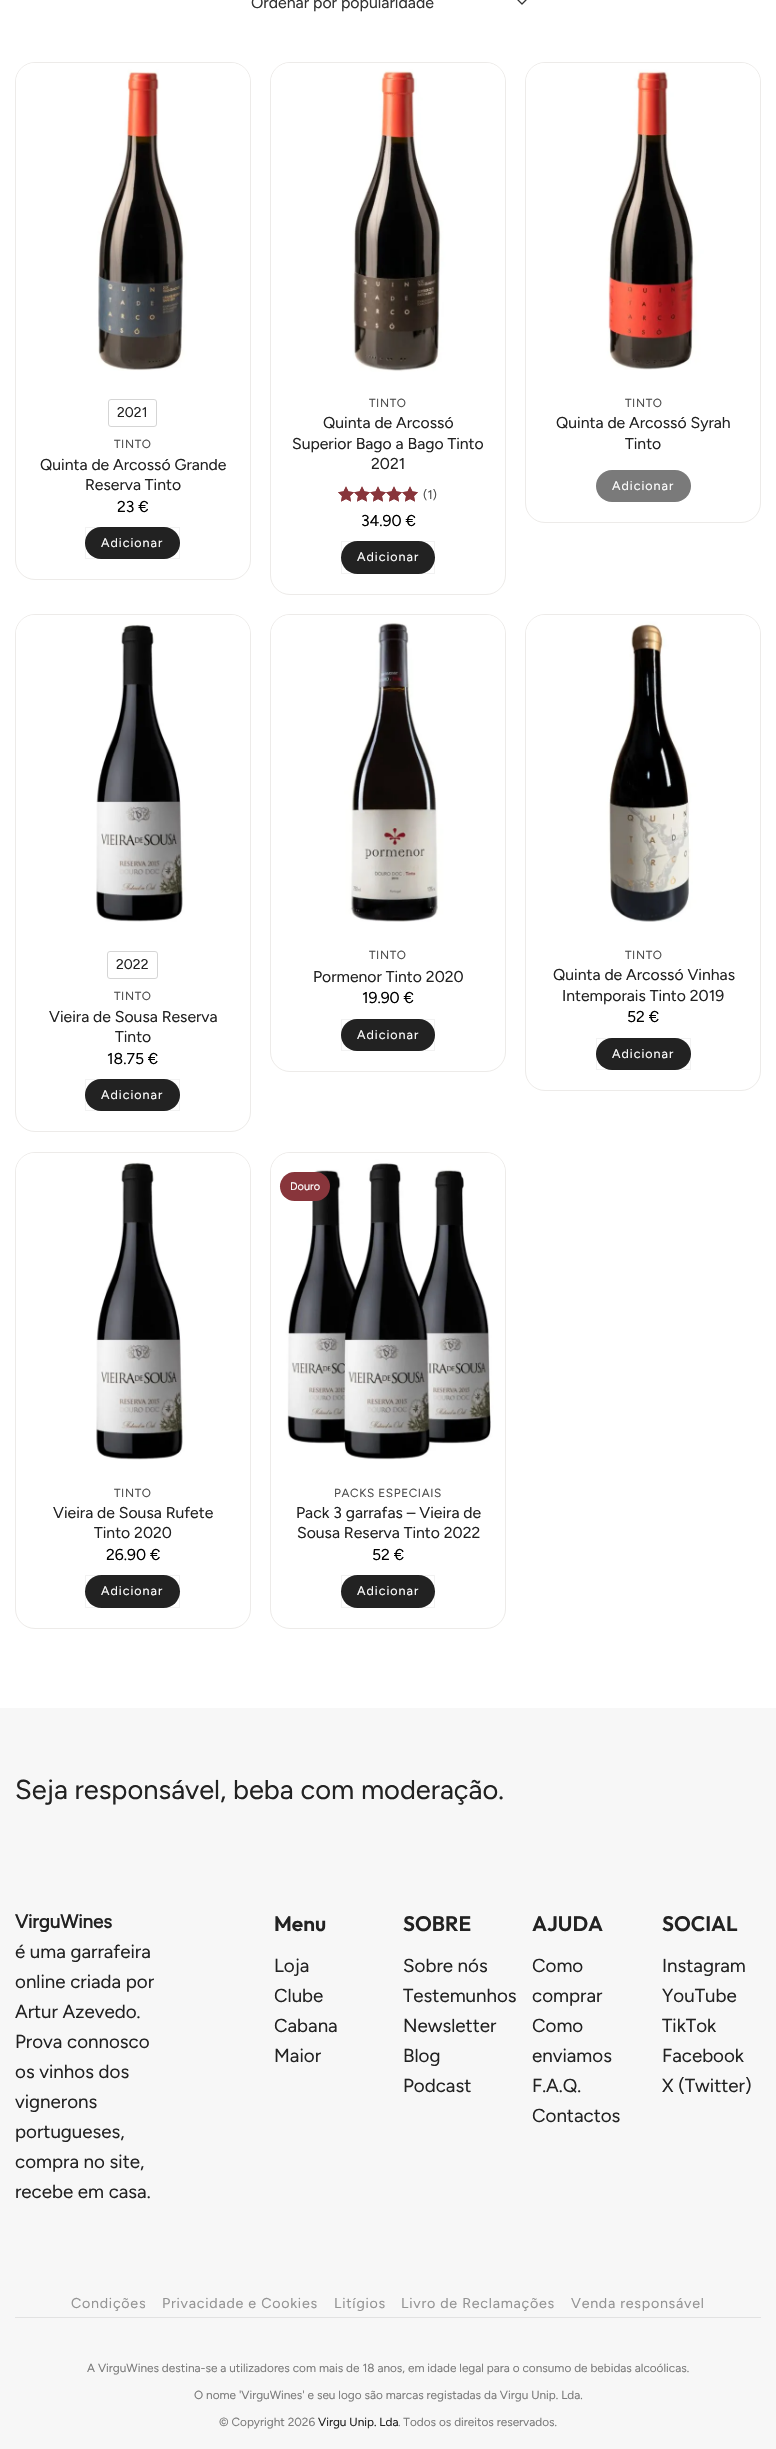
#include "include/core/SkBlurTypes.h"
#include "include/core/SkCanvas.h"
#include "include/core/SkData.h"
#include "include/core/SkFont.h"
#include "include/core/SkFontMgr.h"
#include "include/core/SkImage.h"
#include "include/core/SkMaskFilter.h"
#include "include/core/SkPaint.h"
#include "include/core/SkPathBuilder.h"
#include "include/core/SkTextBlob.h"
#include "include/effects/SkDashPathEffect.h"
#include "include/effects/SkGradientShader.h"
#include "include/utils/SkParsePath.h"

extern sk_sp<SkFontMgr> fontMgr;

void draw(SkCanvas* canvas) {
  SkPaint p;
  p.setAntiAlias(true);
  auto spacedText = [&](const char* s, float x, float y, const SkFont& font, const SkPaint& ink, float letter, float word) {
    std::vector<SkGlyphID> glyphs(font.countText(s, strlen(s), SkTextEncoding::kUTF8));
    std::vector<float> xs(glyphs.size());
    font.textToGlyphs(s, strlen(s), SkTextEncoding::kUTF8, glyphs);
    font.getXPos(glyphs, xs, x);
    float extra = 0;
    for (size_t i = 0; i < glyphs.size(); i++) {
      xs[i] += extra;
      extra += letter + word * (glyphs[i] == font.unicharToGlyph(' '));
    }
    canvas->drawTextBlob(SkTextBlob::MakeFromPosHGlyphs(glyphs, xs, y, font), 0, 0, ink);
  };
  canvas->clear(SK_ColorWHITE);
  p.setStyle(SkPaint::kStroke_Style);
  p.setStrokeWidth(1.3f);
  p.setStrokeCap(SkPaint::kRound_Cap);
  p.setStrokeJoin(SkPaint::kRound_Join);
  p.setColor(SkColorSetRGB(51, 51, 51));
  canvas->drawPath(SkPathBuilder().moveTo(518, 0).lineTo(522, 4).lineTo(526, 0).detach(), p);
  p.setStrokeWidth(1);
  p.setStrokeCap(SkPaint::kButt_Cap);
  p.setStrokeJoin(SkPaint::kMiter_Join);
  p.setColor(SkColorSetRGB(237, 235, 233));
  canvas->drawRoundRect(SkRect::MakeLTRB(15.5f, 62.5f, 250.5f, 579.5f), 19.5f, 19.5f, p);
  canvas->drawImageRect(SkImages::DeferredFromEncodedData(SkData::MakeFromFileName("images/1.png")), SkRect::MakeLTRB(16, 63, 250, 371), SkSamplingOptions());
  p.setColor(SkColorSetRGB(213, 213, 213));
  canvas->drawRoundRect(SkRect::MakeLTRB(108.5f, 399.5f, 156.5f, 426.5f), 2.5f, 2.5f, p);
  p.setStyle(SkPaint::kFill_Style);
  p.setColor(SkColorSetRGB(34, 34, 34));
  canvas->drawRoundRect(SkRect::MakeLTRB(85, 527, 180, 559), 16, 16, p);
  p.setStyle(SkPaint::kStroke_Style);
  p.setColor(SkColorSetARGB(13, 0, 0, 0));
  canvas->drawRect(SkRect::MakeLTRB(85.5f, 527.5f, 179.5f, 558.5f), p);
  p.setColor(SkColorSetRGB(237, 235, 233));
  canvas->drawRoundRect(SkRect::MakeLTRB(270.5f, 62.5f, 505.5f, 594.5f), 19.5f, 19.5f, p);
  canvas->drawImageRect(SkImages::DeferredFromEncodedData(SkData::MakeFromFileName("images/2.png")), SkRect::MakeLTRB(271, 63, 505, 372), SkSamplingOptions());
  canvas->drawImageRect(SkImages::DeferredFromEncodedData(SkData::MakeFromFileName("images/3.png")), SkRect::MakeLTRB(338, 486, 418, 502), SkSamplingOptions());
  canvas->drawImageRect(SkImages::DeferredFromEncodedData(SkData::MakeFromFileName("images/4.png")), SkRect::MakeLTRB(338, 486, 418, 502), SkSamplingOptions());
  p.setStyle(SkPaint::kFill_Style);
  p.setColor(SkColorSetRGB(34, 34, 34));
  canvas->drawRoundRect(SkRect::MakeLTRB(341, 541, 435, 574), 16.5f, 16.5f, p);
  p.setStyle(SkPaint::kStroke_Style);
  p.setColor(SkColorSetARGB(13, 0, 0, 0));
  canvas->drawRect(SkRect::MakeLTRB(341.5f, 541.5f, 434.5f, 573.5f), p);
  p.setColor(SkColorSetRGB(237, 235, 233));
  canvas->drawRoundRect(SkRect::MakeLTRB(525.5f, 62.5f, 760.5f, 522.5f), 19.5f, 19.5f, p);
  canvas->drawImageRect(SkImages::DeferredFromEncodedData(SkData::MakeFromFileName("images/5.png")), SkRect::MakeLTRB(526, 63, 760, 370), SkSamplingOptions());
  p.setStyle(SkPaint::kFill_Style);
  p.setColor(SkColorSetRGB(122, 122, 122));
  canvas->drawRoundRect(SkRect::MakeLTRB(596, 470, 691, 502), 16, 16, p);
  p.setStyle(SkPaint::kStroke_Style);
  p.setColor(SkColorSetRGB(237, 235, 233));
  canvas->drawRoundRect(SkRect::MakeLTRB(15.5f, 614.5f, 250.5f, 1131.5f), 19.5f, 19.5f, p);
  canvas->drawImageRect(SkImages::DeferredFromEncodedData(SkData::MakeFromFileName("images/6.png")), SkRect::MakeLTRB(16, 615, 250, 922), SkSamplingOptions());
  p.setColor(SkColorSetRGB(213, 213, 213));
  canvas->drawRoundRect(SkRect::MakeLTRB(107.5f, 951.5f, 157.5f, 978.5f), 2.5f, 2.5f, p);
  p.setStyle(SkPaint::kFill_Style);
  p.setColor(SkColorSetRGB(34, 34, 34));
  canvas->drawRoundRect(SkRect::MakeLTRB(85, 1079, 180, 1111), 16, 16, p);
  p.setStyle(SkPaint::kStroke_Style);
  p.setColor(SkColorSetARGB(13, 0, 0, 0));
  canvas->drawRect(SkRect::MakeLTRB(85.5f, 1079.5f, 179.5f, 1110.5f), p);
  p.setColor(SkColorSetRGB(237, 235, 233));
  canvas->drawRoundRect(SkRect::MakeLTRB(270.5f, 614.5f, 505.5f, 1071.5f), 19.5f, 19.5f, p);
  canvas->drawImageRect(SkImages::DeferredFromEncodedData(SkData::MakeFromFileName("images/7.png")), SkRect::MakeLTRB(271, 615, 505, 922), SkSamplingOptions());
  p.setStyle(SkPaint::kFill_Style);
  p.setColor(SkColorSetRGB(34, 34, 34));
  canvas->drawRoundRect(SkRect::MakeLTRB(341, 1019, 435, 1051), 16, 16, p);
  p.setStyle(SkPaint::kStroke_Style);
  p.setColor(SkColorSetARGB(13, 0, 0, 0));
  canvas->drawRect(SkRect::MakeLTRB(341.5f, 1019.5f, 434.5f, 1050.5f), p);
  p.setColor(SkColorSetRGB(237, 235, 233));
  canvas->drawRoundRect(SkRect::MakeLTRB(525.5f, 614.5f, 760.5f, 1090.5f), 19.5f, 19.5f, p);
  canvas->drawImageRect(SkImages::DeferredFromEncodedData(SkData::MakeFromFileName("images/8.png")), SkRect::MakeLTRB(526, 615, 760, 922), SkSamplingOptions());
  p.setStyle(SkPaint::kFill_Style);
  p.setColor(SkColorSetRGB(34, 34, 34));
  canvas->drawRoundRect(SkRect::MakeLTRB(596, 1038, 691, 1070), 16, 16, p);
  p.setStyle(SkPaint::kStroke_Style);
  p.setColor(SkColorSetARGB(13, 0, 0, 0));
  canvas->drawRect(SkRect::MakeLTRB(596.5f, 1038.5f, 690.5f, 1069.5f), p);
  p.setColor(SkColorSetRGB(237, 235, 233));
  canvas->drawRoundRect(SkRect::MakeLTRB(15.5f, 1152.5f, 250.5f, 1628.5f), 19.5f, 19.5f, p);
  canvas->drawImageRect(SkImages::DeferredFromEncodedData(SkData::MakeFromFileName("images/9.png")), SkRect::MakeLTRB(16, 1153, 250, 1460), SkSamplingOptions());
  p.setStyle(SkPaint::kFill_Style);
  p.setColor(SkColorSetRGB(34, 34, 34));
  canvas->drawRoundRect(SkRect::MakeLTRB(85, 1575, 180, 1608), 16.5f, 16.5f, p);
  p.setStyle(SkPaint::kStroke_Style);
  p.setColor(SkColorSetARGB(13, 0, 0, 0));
  canvas->drawRect(SkRect::MakeLTRB(85.5f, 1575.5f, 179.5f, 1607.5f), p);
  p.setColor(SkColorSetRGB(237, 235, 233));
  canvas->drawRoundRect(SkRect::MakeLTRB(270.5f, 1152.5f, 505.5f, 1628.5f), 19.5f, 19.5f, p);
  canvas->drawImageRect(SkImages::DeferredFromEncodedData(SkData::MakeFromFileName("images/10.png")), SkRect::MakeLTRB(271, 1153, 505, 1460), SkSamplingOptions());
  p.setStyle(SkPaint::kFill_Style);
  p.setColor(SkColorSetRGB(136, 53, 59));
  canvas->drawRoundRect(SkRect::MakeLTRB(280, 1172, 330, 1201), 14.5f, 14.5f, p);
  p.setColor(SkColorSetRGB(34, 34, 34));
  canvas->drawRoundRect(SkRect::MakeLTRB(341, 1575, 435, 1608), 16.5f, 16.5f, p);
  p.setStyle(SkPaint::kStroke_Style);
  p.setColor(SkColorSetARGB(13, 0, 0, 0));
  canvas->drawRect(SkRect::MakeLTRB(341.5f, 1575.5f, 434.5f, 1607.5f), p);
  p.setStyle(SkPaint::kFill_Style);
  p.setColor(SkColorSetRGB(247, 247, 247));
  canvas->drawRect(SkRect::MakeLTRB(0, 1708, 776, 2449), p);
  p.setColor(SkColorSetRGB(226, 226, 226));
  canvas->drawRect(SkRect::MakeLTRB(15, 2317, 761, 2318), p);
  SkFont font1(fontMgr->matchFamilyStyle("Figtree", SkFontStyle(300, SkFontStyle::kNormal_Width, SkFontStyle::kUpright_Slant)), 15.9f);
  font1.setSubpixel(true);
  p.setColor(SkColorSetRGB(51, 51, 51));
  canvas->drawString("Ordenar por popularidade", 251, 8, font1, p);
  SkFont font2(fontMgr->matchFamilyStyle("Figtree", SkFontStyle(300, SkFontStyle::kNormal_Width, SkFontStyle::kUpright_Slant)), 14);
  font2.setSubpixel(true);
  p.setColor(SkColorSetRGB(34, 34, 34));
  canvas->drawString("2021", 117, 417, font2, p);
  SkFont font3(fontMgr->matchFamilyStyle("Figtree", SkFontStyle(300, SkFontStyle::kNormal_Width, SkFontStyle::kUpright_Slant)), 11.8f);
  font3.setSubpixel(true);
  p.setColor(SkColorSetRGB(78, 78, 78));
  spacedText("TINTO", 114, 448, font3, p, 0.6f, 0);
  SkFont font4(fontMgr->matchFamilyStyle("Figtree", SkFontStyle(300, SkFontStyle::kNormal_Width, SkFontStyle::kUpright_Slant)), 15.75f);
  font4.setSubpixel(true);
  p.setColor(SkColorSetRGB(34, 34, 34));
  canvas->drawString("Quinta de Arcossó Grande", 40, 470, font4, p);
  canvas->drawString("Reserva Tinto", 85, 490, font4, p);
  p.setColor(SK_ColorBLACK);
  canvas->drawString("23 €", 117, 512, font4, p);
  SkFont font5(fontMgr->matchFamilyStyle("Figtree", SkFontStyle(300, SkFontStyle::kNormal_Width, SkFontStyle::kUpright_Slant)), 12.5f);
  font5.setSubpixel(true);
  p.setColor(SK_ColorWHITE);
  spacedText("Adicionar", 101, 547, font5, p, 1, 0);
  p.setColor(SkColorSetRGB(78, 78, 78));
  spacedText("TINTO", 369, 407, font3, p, 0.6f, 0);
  p.setColor(SkColorSetRGB(34, 34, 34));
  canvas->drawString("Quinta de Arcossó", 323, 428, font4, p);
  canvas->drawString("Superior Bago a Bago Tinto", 292, 449, font4, p);
  canvas->drawString("2021", 371, 469, font4, p);
  p.setColor(SkColorSetRGB(78, 78, 78));
  canvas->drawString("(1)", 423, 499, font5, p);
  p.setColor(SK_ColorBLACK);
  canvas->drawString("34.90 €", 361, 526, font4, p);
  p.setColor(SK_ColorWHITE);
  spacedText("Adicionar", 357, 561, font5, p, 1, 0);
  p.setColor(SkColorSetRGB(78, 78, 78));
  spacedText("TINTO", 625, 407, font3, p, 0.6f, 0);
  p.setColor(SkColorSetRGB(34, 34, 34));
  canvas->drawString("Quinta de Arcossó Syrah", 556, 428, font4, p);
  canvas->drawString("Tinto", 625, 449, font4, p);
  p.setColor(SK_ColorWHITE);
  spacedText("Adicionar", 612, 490, font5, p, 1, 0);
  p.setColor(SkColorSetRGB(34, 34, 34));
  canvas->drawString("2022", 116, 969, font2, p);
  p.setColor(SkColorSetRGB(78, 78, 78));
  spacedText("TINTO", 114, 1000, font3, p, 0.6f, 0);
  p.setColor(SkColorSetRGB(34, 34, 34));
  canvas->drawString("Vieira de Sousa Reserva", 49, 1022, font4, p);
  canvas->drawString("Tinto", 115, 1042, font4, p);
  p.setColor(SK_ColorBLACK);
  canvas->drawString("18.75 €", 107, 1064, font4, p);
  p.setColor(SK_ColorWHITE);
  spacedText("Adicionar", 101, 1099, font5, p, 1, 0);
  p.setColor(SkColorSetRGB(78, 78, 78));
  spacedText("TINTO", 369, 959, font3, p, 0.6f, 0);
  p.setColor(SkColorSetRGB(34, 34, 34));
  canvas->drawString("Pormenor Tinto 2020", 313, 982, font4, p);
  p.setColor(SK_ColorBLACK);
  canvas->drawString("19.90 €", 362, 1003, font4, p);
  p.setColor(SK_ColorWHITE);
  spacedText("Adicionar", 357, 1039, font5, p, 1, 0);
  p.setColor(SkColorSetRGB(78, 78, 78));
  spacedText("TINTO", 625, 959, font3, p, 0.6f, 0);
  p.setColor(SkColorSetRGB(34, 34, 34));
  canvas->drawString("Quinta de Arcossó Vinhas", 553, 980, font4, p);
  canvas->drawString("Intemporais Tinto 2019", 562, 1001, font4, p);
  p.setColor(SK_ColorBLACK);
  canvas->drawString("52 €", 627, 1022, font4, p);
  p.setColor(SK_ColorWHITE);
  spacedText("Adicionar", 612, 1058, font5, p, 1, 0);
  p.setColor(SkColorSetRGB(78, 78, 78));
  spacedText("TINTO", 114, 1497, font3, p, 0.6f, 0);
  p.setColor(SkColorSetRGB(34, 34, 34));
  canvas->drawString("Vieira de Sousa Rufete", 53, 1518, font4, p);
  canvas->drawString("Tinto 2020", 94, 1538, font4, p);
  p.setColor(SK_ColorBLACK);
  canvas->drawString("26.90 €", 106, 1560, font4, p);
  p.setColor(SK_ColorWHITE);
  spacedText("Adicionar", 101, 1595, font5, p, 1, 0);
  SkFont font6(fontMgr->matchFamilyStyle("Figtree", SkFontStyle(300, SkFontStyle::kNormal_Width, SkFontStyle::kUpright_Slant)), 11);
  font6.setSubpixel(true);
  canvas->drawString("Douro", 290, 1190, font6, p);
  p.setColor(SkColorSetRGB(78, 78, 78));
  spacedText("PACKS ESPECIAIS", 334, 1497, font3, p, 0.6f, 0);
  p.setColor(SkColorSetRGB(34, 34, 34));
  canvas->drawString("Pack 3 garrafas – Vieira de", 296, 1518, font4, p);
  canvas->drawString("Sousa Reserva Tinto 2022", 297, 1538, font4, p);
  p.setColor(SK_ColorBLACK);
  canvas->drawString("52 €", 372, 1560, font4, p);
  p.setColor(SK_ColorWHITE);
  spacedText("Adicionar", 357, 1595, font5, p, 1, 0);
  SkFont font7(fontMgr->matchFamilyStyle("Figtree", SkFontStyle(300, SkFontStyle::kNormal_Width, SkFontStyle::kUpright_Slant)), 27.25f);
  font7.setSubpixel(true);
  p.setColor(SkColorSetRGB(34, 34, 34));
  canvas->drawString("Seja responsável, beba com moderação.", 15, 1799, font7, p);
  SkFont font8(fontMgr->matchFamilyStyle("Figtree", SkFontStyle::Bold()), 18.75f);
  font8.setSubpixel(true);
  canvas->drawString("VirguWines", 15, 1928, font8, p);
  SkFont font9(fontMgr->matchFamilyStyle("Figtree", SkFontStyle(300, SkFontStyle::kNormal_Width, SkFontStyle::kUpright_Slant)), 18.75f);
  font9.setSubpixel(true);
  canvas->drawString("é uma garrafeira", 15, 1958, font9, p);
  canvas->drawString("online criada por", 15, 1988, font9, p);
  canvas->drawString("Artur Azevedo.", 15, 2018, font9, p);
  canvas->drawString("Prova connosco", 15, 2048, font9, p);
  canvas->drawString("os vinhos dos", 15, 2078, font9, p);
  canvas->drawString("vignerons", 15, 2108, font9, p);
  canvas->drawString("portugueses,", 15, 2138, font9, p);
  canvas->drawString("compra no site,", 15, 2168, font9, p);
  canvas->drawString("recebe em casa.", 15, 2198, font9, p);
  SkFont font10(fontMgr->matchFamilyStyle("Outfit", SkFontStyle(600, SkFontStyle::kNormal_Width, SkFontStyle::kUpright_Slant)), 21);
  font10.setSubpixel(true);
  canvas->drawString("Menu", 274, 1931, font10, p);
  canvas->drawString("Loja", 274, 1972, font9, p);
  canvas->drawString("Clube", 274, 2002, font9, p);
  canvas->drawString("Cabana", 274, 2032, font9, p);
  canvas->drawString("Maior", 274, 2062, font9, p);
  canvas->drawString("SOBRE", 403, 1931, font10, p);
  canvas->drawString("Sobre nós", 403, 1972, font9, p);
  canvas->drawString("Testemunhos", 403, 2002, font9, p);
  canvas->drawString("Newsletter", 403, 2032, font9, p);
  canvas->drawString("Blog", 403, 2062, font9, p);
  canvas->drawString("Podcast", 403, 2092, font9, p);
  canvas->drawString("AJUDA", 532, 1931, font10, p);
  canvas->drawString("Como", 532, 1972, font9, p);
  canvas->drawString("comprar", 532, 2002, font9, p);
  canvas->drawString("Como", 532, 2032, font9, p);
  canvas->drawString("enviamos", 532, 2062, font9, p);
  canvas->drawString("F.A.Q.", 532, 2092, font9, p);
  canvas->drawString("Contactos", 532, 2122, font9, p);
  canvas->drawString("SOCIAL", 662, 1931, font10, p);
  canvas->drawString("Instagram", 662, 1972, font9, p);
  canvas->drawString("YouTube", 662, 2002, font9, p);
  canvas->drawString("TikTok", 662, 2032, font9, p);
  canvas->drawString("Facebook", 662, 2062, font9, p);
  canvas->drawString("X (Twitter)", 662, 2092, font9, p);
  SkFont font11(fontMgr->matchFamilyStyle("Figtree", SkFontStyle(300, SkFontStyle::kNormal_Width, SkFontStyle::kUpright_Slant)), 14.25f);
  font11.setSubpixel(true);
  p.setColor(SkColorSetRGB(148, 148, 148));
  spacedText("Condições", 71, 2308, font11, p, 0.75f, 0);
  spacedText("Privacidade e Cookies", 162, 2308, font11, p, 0.75f, 0);
  spacedText("Litígios", 334, 2308, font11, p, 0.75f, 0);
  spacedText("Livro de Reclamações", 401, 2308, font11, p, 0.75f, 0);
  spacedText("Venda responsável", 571, 2308, font11, p, 0.75f, 0);
  p.setColor(SkColorSetRGB(124, 124, 124));
  canvas->drawString("A VirguWines destina-se a utilizadores com mais de 18 anos, em idade legal para o consumo de bebidas alcoólicas.", 87, 2372, font3, p);
  canvas->drawString("O nome 'VirguWines' e seu logo são marcas registadas da Virgu Unip. Lda.", 194, 2399, font3, p);
  canvas->drawString("© Copyright 2026", 219, 2426, font3, p);
  p.setColor(SkColorSetRGB(34, 34, 34));
  canvas->drawString("Virgu Unip. Lda", 318, 2426, font3, p);
  p.setColor(SkColorSetRGB(124, 124, 124));
  canvas->drawString(". Todos os direitos reservados.", 398, 2426, font3, p);
}
